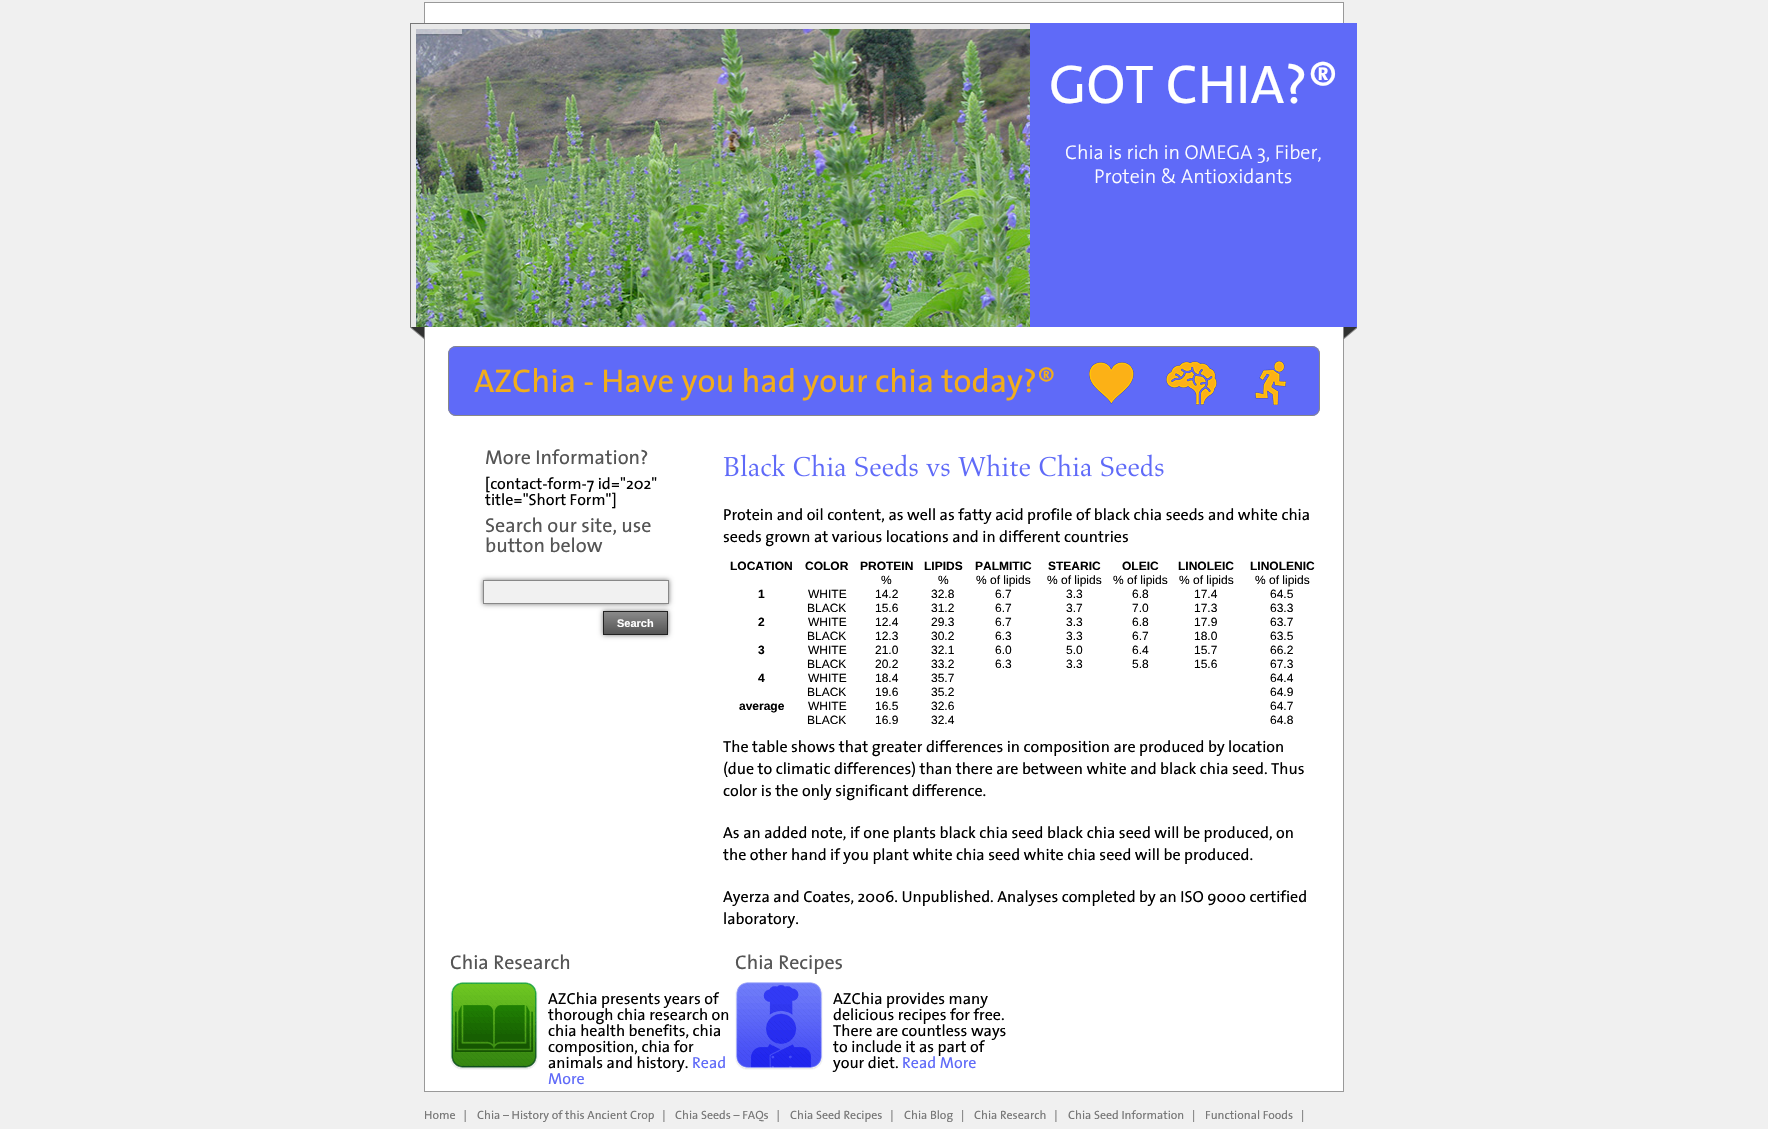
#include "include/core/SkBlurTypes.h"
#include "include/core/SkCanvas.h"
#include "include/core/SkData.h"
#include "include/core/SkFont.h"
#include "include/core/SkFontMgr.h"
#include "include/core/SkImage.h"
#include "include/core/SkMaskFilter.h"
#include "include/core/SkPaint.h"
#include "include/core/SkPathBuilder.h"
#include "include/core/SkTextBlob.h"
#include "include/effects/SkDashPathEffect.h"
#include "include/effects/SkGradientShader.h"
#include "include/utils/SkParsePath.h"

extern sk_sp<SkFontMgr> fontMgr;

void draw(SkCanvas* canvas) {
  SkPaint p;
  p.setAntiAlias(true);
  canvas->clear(SkColorSetRGB(240, 240, 240));
  p.setColor(SK_ColorWHITE);
  canvas->drawRect(SkRect::MakeLTRB(424.5f, 2.5f, 1343.5f, 1091.5f), p);
  p.setStyle(SkPaint::kStroke_Style);
  p.setStrokeWidth(1);
  p.setColor(SkColorSetRGB(153, 153, 153));
  canvas->drawRect(SkRect::MakeLTRB(424.5f, 2.5f, 1343.5f, 1091.5f), p);
  canvas->drawImageRect(SkImages::DeferredFromEncodedData(SkData::MakeFromFileName("images/1.png")), SkRect::MakeLTRB(410, 327, 1357, 340), SkSamplingOptions());
  p.setStyle(SkPaint::kFill_Style);
  p.setColor(SkColorSetRGB(119, 119, 119));
  canvas->drawRect(SkRect::MakeLTRB(410, 23, 1030, 24), p);
  canvas->drawRect(SkRect::MakeLTRB(410, 23, 411, 327), p);
  p.setColor(SkColorSetRGB(233, 233, 233));
  canvas->drawRect(SkRect::MakeLTRB(411, 24, 1030, 327), p);
  canvas->drawImageRect(SkImages::DeferredFromEncodedData(SkData::MakeFromFileName("images/2.png")), SkRect::MakeLTRB(416, 29, 1030, 327), SkSamplingOptions());
  canvas->drawImageRect(SkImages::DeferredFromEncodedData(SkData::MakeFromFileName("images/3.png")), SkRect::MakeLTRB(416, 29, 462, 36), SkSamplingOptions());
  p.setColor(SkColorSetRGB(95, 106, 248));
  canvas->drawRect(SkRect::MakeLTRB(1030, 23, 1357, 327), p);
  canvas->drawRoundRect(SkRect::MakeLTRB(448, 346, 1320, 416), 8, 8, p);
  canvas->drawImageRect(SkImages::DeferredFromEncodedData(SkData::MakeFromFileName("images/4.png")), SkRect::MakeLTRB(1089, 361, 1286, 405), SkSamplingOptions());
  p.setStyle(SkPaint::kStroke_Style);
  p.setColor(SkColorSetRGB(136, 136, 136));
  canvas->drawRoundRect(SkRect::MakeLTRB(448.5f, 346.5f, 1319.5f, 415.5f), 7.5f, 7.5f, p);
  p.setStyle(SkPaint::kFill_Style);
  p.setColor(SkColorSetRGB(119, 119, 119));
  p.setMaskFilter(SkMaskFilter::MakeBlur(kNormal_SkBlurStyle, 2.5f));
  canvas->drawRect(SkRect::MakeLTRB(483, 580, 669, 604), p);
  p.setMaskFilter(nullptr);
  p.setColor(SkColorSetRGB(241, 241, 241));
  canvas->drawRect(SkRect::MakeLTRB(483.5f, 580.5f, 668.5f, 603.5f), p);
  p.setStyle(SkPaint::kStroke_Style);
  p.setColor(SkColorSetRGB(136, 136, 136));
  canvas->drawRect(SkRect::MakeLTRB(483.5f, 580.5f, 668.5f, 603.5f), p);
  p.setStyle(SkPaint::kFill_Style);
  p.setColor(SkColorSetRGB(119, 119, 119));
  p.setMaskFilter(SkMaskFilter::MakeBlur(kNormal_SkBlurStyle, 2.5f));
  canvas->drawRect(SkRect::MakeLTRB(603, 611, 668, 635), p);
  p.setMaskFilter(nullptr);
  {
    const SkColor colors[] = {SkColorSetRGB(138, 138, 138), SkColorSetRGB(85, 85, 85)};
    const float stops[] = {0, 1};
    const SkPoint ends[] = {{636, 612}, {636, 634}};
    p.setShader(SkGradientShader::MakeLinear(ends, colors, stops, 2, SkTileMode::kClamp));
    p.setAlpha(255);
  }
  canvas->drawRect(SkRect::MakeLTRB(604, 612, 667, 634), p);
  p.setStyle(SkPaint::kStroke_Style);
  p.setShader(nullptr);
  p.setColor(SkColorSetRGB(34, 34, 34));
  canvas->drawRect(SkRect::MakeLTRB(603.5f, 611.5f, 667.5f, 634.5f), p);
  canvas->drawImageRect(SkImages::DeferredFromEncodedData(SkData::MakeFromFileName("images/5.png")), SkRect::MakeLTRB(723, 454, 1164, 477), SkSamplingOptions());
  canvas->drawImageRect(SkImages::DeferredFromEncodedData(SkData::MakeFromFileName("images/6.png")), SkRect::MakeLTRB(450, 982, 538, 1070), SkSamplingOptions());
  canvas->drawImageRect(SkImages::DeferredFromEncodedData(SkData::MakeFromFileName("images/7.png")), SkRect::MakeLTRB(735, 982, 823, 1070), SkSamplingOptions());
  SkFont font1(fontMgr->matchFamilyStyle("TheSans", SkFontStyle::Normal()), 55);
  font1.setSubpixel(true);
  p.setStyle(SkPaint::kFill_Style);
  p.setColor(SK_ColorWHITE);
  canvas->drawString("GOT CHIA?®", 1049, 103, font1, p);
  SkFont font2(fontMgr->matchFamilyStyle("TheSans", SkFontStyle(300, SkFontStyle::kNormal_Width, SkFontStyle::kUpright_Slant)), 20);
  font2.setSubpixel(true);
  canvas->drawString("Chia is rich in OMEGA 3, Fiber,", 1065, 159, font2, p);
  canvas->drawString("Protein & Antioxidants", 1094, 183, font2, p);
  SkFont font3(fontMgr->matchFamilyStyle("TheSans", SkFontStyle::Normal()), 33);
  font3.setSubpixel(true);
  p.setColor(SkColorSetRGB(241, 173, 27));
  canvas->drawString("AZChia - Have you had your chia today?®", 474, 392, font3, p);
  SkFont font4(fontMgr->matchFamilyStyle("TheSans", SkFontStyle::Normal()), 20);
  font4.setSubpixel(true);
  p.setColor(SkColorSetRGB(85, 85, 85));
  canvas->drawString("More Information?", 485, 464, font4, p);
  SkFont font5(fontMgr->matchFamilyStyle("TheSans", SkFontStyle::Normal()), 16);
  font5.setSubpixel(true);
  p.setColor(SK_ColorBLACK);
  canvas->drawString("[contact-form-7 id=\"202\"", 485, 489, font5, p);
  canvas->drawString("title=\"Short Form\"]", 485, 505, font5, p);
  p.setColor(SkColorSetRGB(85, 85, 85));
  canvas->drawString("Search our site, use", 485, 532, font4, p);
  canvas->drawString("button below", 485, 552, font4, p);
  SkFont font6(fontMgr->matchFamilyStyle("Liberation Sans", SkFontStyle::Bold()), 11);
  font6.setSubpixel(true);
  p.setColor(SK_ColorWHITE);
  canvas->drawString("Search", 617, 627, font6, p);
  p.setColor(SK_ColorBLACK);
  canvas->drawString("Protein and oil content, as well as fatty acid profile of black chia seeds and white chia", 723, 520, font5, p);
  canvas->drawString("seeds grown at various locations and in different countries", 723, 542, font5, p);
  SkFont font7(fontMgr->matchFamilyStyle("Liberation Sans", SkFontStyle::Bold()), 12);
  font7.setSubpixel(true);
  canvas->drawString("LOCATION", 730, 570, font7, p);
  canvas->drawString("COLOR", 805, 570, font7, p);
  canvas->drawString("PROTEIN", 860, 570, font7, p);
  canvas->drawString("LIPIDS", 924, 570, font7, p);
  canvas->drawString("PALMITIC", 975, 570, font7, p);
  canvas->drawString("STEARIC", 1048, 570, font7, p);
  canvas->drawString("OLEIC", 1122, 570, font7, p);
  canvas->drawString("LINOLEIC", 1178, 570, font7, p);
  canvas->drawString("LINOLENIC", 1250, 570, font7, p);
  SkFont font8(fontMgr->matchFamilyStyle("Liberation Sans", SkFontStyle::Normal()), 12);
  font8.setSubpixel(true);
  canvas->drawString("%", 881, 584, font8, p);
  canvas->drawString("%", 938, 584, font8, p);
  canvas->drawString("% of lipids", 976, 584, font8, p);
  canvas->drawString("% of lipids", 1047, 584, font8, p);
  canvas->drawString("% of lipids", 1113, 584, font8, p);
  canvas->drawString("% of lipids", 1179, 584, font8, p);
  canvas->drawString("% of lipids", 1255, 584, font8, p);
  canvas->drawString("1", 758, 598, font7, p);
  canvas->drawString("WHITE", 808, 598, font8, p);
  canvas->drawString("14.2", 875, 598, font8, p);
  canvas->drawString("32.8", 931, 598, font8, p);
  canvas->drawString("6.7", 995, 598, font8, p);
  canvas->drawString("3.3", 1066, 598, font8, p);
  canvas->drawString("6.8", 1132, 598, font8, p);
  canvas->drawString("17.4", 1194, 598, font8, p);
  canvas->drawString("64.5", 1270, 598, font8, p);
  canvas->drawString("BLACK", 807, 612, font8, p);
  canvas->drawString("15.6", 875, 612, font8, p);
  canvas->drawString("31.2", 931, 612, font8, p);
  canvas->drawString("6.7", 995, 612, font8, p);
  canvas->drawString("3.7", 1066, 612, font8, p);
  canvas->drawString("7.0", 1132, 612, font8, p);
  canvas->drawString("17.3", 1194, 612, font8, p);
  canvas->drawString("63.3", 1270, 612, font8, p);
  canvas->drawString("2", 758, 626, font7, p);
  canvas->drawString("WHITE", 808, 626, font8, p);
  canvas->drawString("12.4", 875, 626, font8, p);
  canvas->drawString("29.3", 931, 626, font8, p);
  canvas->drawString("6.7", 995, 626, font8, p);
  canvas->drawString("3.3", 1066, 626, font8, p);
  canvas->drawString("6.8", 1132, 626, font8, p);
  canvas->drawString("17.9", 1194, 626, font8, p);
  canvas->drawString("63.7", 1270, 626, font8, p);
  canvas->drawString("BLACK", 807, 640, font8, p);
  canvas->drawString("12.3", 875, 640, font8, p);
  canvas->drawString("30.2", 931, 640, font8, p);
  canvas->drawString("6.3", 995, 640, font8, p);
  canvas->drawString("3.3", 1066, 640, font8, p);
  canvas->drawString("6.7", 1132, 640, font8, p);
  canvas->drawString("18.0", 1194, 640, font8, p);
  canvas->drawString("63.5", 1270, 640, font8, p);
  canvas->drawString("3", 758, 654, font7, p);
  canvas->drawString("WHITE", 808, 654, font8, p);
  canvas->drawString("21.0", 875, 654, font8, p);
  canvas->drawString("32.1", 931, 654, font8, p);
  canvas->drawString("6.0", 995, 654, font8, p);
  canvas->drawString("5.0", 1066, 654, font8, p);
  canvas->drawString("6.4", 1132, 654, font8, p);
  canvas->drawString("15.7", 1194, 654, font8, p);
  canvas->drawString("66.2", 1270, 654, font8, p);
  canvas->drawString("BLACK", 807, 668, font8, p);
  canvas->drawString("20.2", 875, 668, font8, p);
  canvas->drawString("33.2", 931, 668, font8, p);
  canvas->drawString("6.3", 995, 668, font8, p);
  canvas->drawString("3.3", 1066, 668, font8, p);
  canvas->drawString("5.8", 1132, 668, font8, p);
  canvas->drawString("15.6", 1194, 668, font8, p);
  canvas->drawString("67.3", 1270, 668, font8, p);
  canvas->drawString("4", 758, 682, font7, p);
  canvas->drawString("WHITE", 808, 682, font8, p);
  canvas->drawString("18.4", 875, 682, font8, p);
  canvas->drawString("35.7", 931, 682, font8, p);
  canvas->drawString("64.4", 1270, 682, font8, p);
  canvas->drawString("BLACK", 807, 696, font8, p);
  canvas->drawString("19.6", 875, 696, font8, p);
  canvas->drawString("35.2", 931, 696, font8, p);
  canvas->drawString("64.9", 1270, 696, font8, p);
  canvas->drawString("average", 739, 710, font7, p);
  canvas->drawString("WHITE", 808, 710, font8, p);
  canvas->drawString("16.5", 875, 710, font8, p);
  canvas->drawString("32.6", 931, 710, font8, p);
  canvas->drawString("64.7", 1270, 710, font8, p);
  canvas->drawString("BLACK", 807, 724, font8, p);
  canvas->drawString("16.9", 875, 724, font8, p);
  canvas->drawString("32.4", 931, 724, font8, p);
  canvas->drawString("64.8", 1270, 724, font8, p);
  canvas->drawString("The table shows that greater differences in composition are produced by location", 723, 752, font5, p);
  canvas->drawString("(due to climatic differences) than there are between white and black chia seed. Thus", 723, 774, font5, p);
  canvas->drawString("color is the only significant difference.", 723, 796, font5, p);
  canvas->drawString("As an added note, if one plants black chia seed black chia seed will be produced, on", 723, 838, font5, p);
  canvas->drawString("the other hand if you plant white chia seed white chia seed will be produced.", 723, 860, font5, p);
  canvas->drawString("Ayerza and Coates, 2006. Unpublished. Analyses completed by an ISO 9000 certified", 723, 902, font5, p);
  canvas->drawString("laboratory.", 723, 924, font5, p);
  p.setColor(SkColorSetRGB(85, 85, 85));
  canvas->drawString("Chia Research", 450, 969, font4, p);
  p.setColor(SK_ColorBLACK);
  canvas->drawString("AZChia presents years of", 548, 1004, font5, p);
  canvas->drawString("thorough chia research on", 548, 1020, font5, p);
  canvas->drawString("chia health benefits, chia", 548, 1036, font5, p);
  canvas->drawString("composition, chia for", 548, 1052, font5, p);
  canvas->drawString("animals and history.", 548, 1068, font5, p);
  p.setColor(SkColorSetRGB(95, 106, 248));
  canvas->drawString("Read", 692, 1068, font5, p);
  canvas->drawString("More", 548, 1084, font5, p);
  p.setColor(SkColorSetRGB(85, 85, 85));
  canvas->drawString("Chia Recipes", 735, 969, font4, p);
  p.setColor(SK_ColorBLACK);
  canvas->drawString("AZChia provides many", 833, 1004, font5, p);
  canvas->drawString("delicious recipes for free.", 833, 1020, font5, p);
  canvas->drawString("There are countless ways", 833, 1036, font5, p);
  canvas->drawString("to include it as part of", 833, 1052, font5, p);
  canvas->drawString("your diet.", 833, 1068, font5, p);
  p.setColor(SkColorSetRGB(95, 106, 248));
  canvas->drawString("Read More", 902, 1068, font5, p);
  SkFont font9(fontMgr->matchFamilyStyle("TheSans", SkFontStyle::Normal()), 12);
  font9.setSubpixel(true);
  p.setColor(SkColorSetRGB(119, 119, 119));
  canvas->drawString("Home   |", 424, 1119, font9, p);
  canvas->drawString("Chia – History of this Ancient Crop   |", 477, 1119, font9, p);
  canvas->drawString("Chia Seeds – FAQs   |", 675, 1119, font9, p);
  canvas->drawString("Chia Seed Recipes   |", 790, 1119, font9, p);
  canvas->drawString("Chia Blog   |", 904, 1119, font9, p);
  canvas->drawString("Chia Research   |", 974, 1119, font9, p);
  canvas->drawString("Chia Seed Information   |", 1068, 1119, font9, p);
  canvas->drawString("Functional Foods   |", 1205, 1119, font9, p);
}
